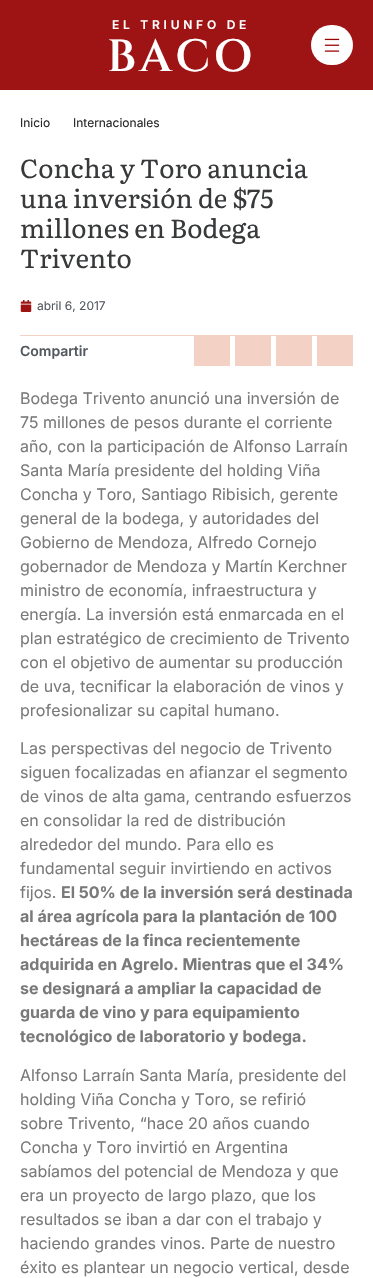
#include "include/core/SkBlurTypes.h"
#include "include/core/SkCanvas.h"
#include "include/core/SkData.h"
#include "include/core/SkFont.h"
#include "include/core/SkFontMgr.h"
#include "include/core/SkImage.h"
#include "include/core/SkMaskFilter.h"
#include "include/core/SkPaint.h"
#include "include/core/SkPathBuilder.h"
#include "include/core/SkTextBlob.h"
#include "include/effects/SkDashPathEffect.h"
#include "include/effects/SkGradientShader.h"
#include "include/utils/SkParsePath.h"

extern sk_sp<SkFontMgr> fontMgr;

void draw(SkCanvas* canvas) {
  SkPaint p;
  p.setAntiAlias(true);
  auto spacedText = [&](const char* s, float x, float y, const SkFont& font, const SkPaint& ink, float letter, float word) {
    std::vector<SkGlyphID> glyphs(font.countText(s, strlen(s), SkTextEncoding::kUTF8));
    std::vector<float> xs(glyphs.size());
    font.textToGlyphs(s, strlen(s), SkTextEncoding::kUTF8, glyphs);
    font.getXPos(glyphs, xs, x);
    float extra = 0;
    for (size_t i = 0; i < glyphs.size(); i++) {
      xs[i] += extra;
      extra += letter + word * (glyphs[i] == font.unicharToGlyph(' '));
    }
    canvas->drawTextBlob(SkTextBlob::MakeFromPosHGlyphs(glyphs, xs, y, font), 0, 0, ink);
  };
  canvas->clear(SK_ColorWHITE);
  p.setColor(SkColorSetRGB(158, 20, 20));
  canvas->drawRect(SkRect::MakeLTRB(0, 0, 373, 90), p);
  p.setColor(SK_ColorWHITE);
  canvas->drawRoundRect(SkRect::MakeLTRB(311, 25, 353, 65), 20, 20, p);
  canvas->drawImageRect(SkImages::DeferredFromEncodedData(SkData::MakeFromFileName("images/1.png")), SkRect::MakeLTRB(324, 38, 340, 52), SkSamplingOptions());
  canvas->drawImageRect(SkImages::DeferredFromEncodedData(SkData::MakeFromFileName("images/2.png")), SkRect::MakeLTRB(20, 300, 32, 312), SkSamplingOptions());
  p.setColor(SkColorSetRGB(243, 210, 197));
  canvas->drawRect(SkRect::MakeLTRB(20, 335, 353, 336), p);
  canvas->drawRect(SkRect::MakeLTRB(194, 336, 230, 366), p);
  canvas->drawRect(SkRect::MakeLTRB(235, 336, 271, 366), p);
  canvas->drawRect(SkRect::MakeLTRB(276, 336, 312, 366), p);
  canvas->drawRect(SkRect::MakeLTRB(317, 336, 353, 366), p);
  SkFont font1(fontMgr->matchFamilyStyle("Inter", SkFontStyle(600, SkFontStyle::kNormal_Width, SkFontStyle::kUpright_Slant)), 12);
  font1.setSubpixel(true);
  p.setColor(SK_ColorWHITE);
  spacedText("EL TRIUNFO DE", 112, 29, font1, p, 3.75f, 0);
  SkFont font2(fontMgr->matchFamilyStyle("Cinzel", SkFontStyle(600, SkFontStyle::kNormal_Width, SkFontStyle::kUpright_Slant)), 45);
  font2.setSubpixel(true);
  spacedText("BACO", 107, 71, font2, p, 3.5f, 0);
  SkFont font3(fontMgr->matchFamilyStyle("Inter", SkFontStyle::Normal()), 12);
  font3.setSubpixel(true);
  p.setColor(SkColorSetRGB(41, 39, 39));
  canvas->drawString("Inicio", 20, 127, font3, p);
  canvas->drawString("Internacionales", 73, 127, font3, p);
  SkFont font4(fontMgr->matchFamilyStyle("Literata", SkFontStyle::Normal()), 26);
  font4.setSubpixel(true);
  p.setColor(SkColorSetRGB(55, 57, 58));
  canvas->drawString("Concha y Toro anuncia", 20, 178, font4, p);
  canvas->drawString("una inversión de $75", 20, 208, font4, p);
  canvas->drawString("millones en Bodega", 20, 238, font4, p);
  canvas->drawString("Trivento", 20, 268, font4, p);
  p.setColor(SkColorSetRGB(84, 89, 95));
  canvas->drawString("abril 6, 2017", 37, 310, font3, p);
  SkFont font5(fontMgr->matchFamilyStyle("Inter", SkFontStyle(600, SkFontStyle::kNormal_Width, SkFontStyle::kUpright_Slant)), 14);
  font5.setSubpixel(true);
  canvas->drawString("Compartir", 20, 356, font5, p);
  SkFont font6(fontMgr->matchFamilyStyle("Inter", SkFontStyle::Normal()), 16);
  font6.setSubpixel(true);
  p.setColor(SkColorSetRGB(122, 122, 122));
  canvas->drawString("Bodega Trivento anunció una inversión de", 20, 404, font6, p);
  canvas->drawString("75 millones de pesos durante el corriente", 20, 428, font6, p);
  canvas->drawString("año, con la participación de Alfonso Larraín", 20, 452, font6, p);
  canvas->drawString("Santa María presidente del holding Viña", 20, 476, font6, p);
  canvas->drawString("Concha y Toro, Santiago Ribisich, gerente", 20, 500, font6, p);
  canvas->drawString("general de la bodega, y autoridades del", 20, 524, font6, p);
  canvas->drawString("Gobierno de Mendoza, Alfredo Cornejo", 20, 548, font6, p);
  canvas->drawString("gobernador de Mendoza y Martín Kerchner", 20, 572, font6, p);
  canvas->drawString("ministro de economía, infraestructura y", 20, 596, font6, p);
  canvas->drawString("energía. La inversión está enmarcada en el", 20, 620, font6, p);
  canvas->drawString("plan estratégico de crecimiento de Trivento", 20, 644, font6, p);
  canvas->drawString("con el objetivo de aumentar su producción", 20, 668, font6, p);
  canvas->drawString("de uva, tecnificar la elaboración de vinos y", 20, 692, font6, p);
  canvas->drawString("profesionalizar su capital humano.", 20, 716, font6, p);
  canvas->drawString("Las perspectivas del negocio de Trivento", 20, 754, font6, p);
  canvas->drawString("siguen focalizadas en afianzar el segmento", 20, 778, font6, p);
  canvas->drawString("de vinos de alta gama, centrando esfuerzos", 20, 802, font6, p);
  canvas->drawString("en consolidar la red de distribución", 20, 826, font6, p);
  canvas->drawString("alrededor del mundo. Para ello es", 20, 850, font6, p);
  canvas->drawString("fundamental seguir invirtiendo en activos", 20, 874, font6, p);
  canvas->drawString("fijos.", 20, 898, font6, p);
  SkFont font7(fontMgr->matchFamilyStyle("Inter", SkFontStyle::Bold()), 16);
  font7.setSubpixel(true);
  canvas->drawString("El 50% de la inversión será destinada", 61, 898, font7, p);
  canvas->drawString("al área agrícola para la plantación de 100", 20, 922, font7, p);
  canvas->drawString("hectáreas de la finca recientemente", 20, 946, font7, p);
  canvas->drawString("adquirida en Agrelo. Mientras que el 34%", 20, 970, font7, p);
  canvas->drawString("se designará a ampliar la capacidad de", 20, 994, font7, p);
  canvas->drawString("guarda de vino y para equipamiento", 20, 1018, font7, p);
  canvas->drawString("tecnológico de laboratorio y bodega.", 20, 1042, font7, p);
  canvas->drawString("Alfonso Larraín Santa María, presidente del", 20, 1081, font6, p);
  canvas->drawString("holding Viña Concha y Toro, se refirió", 20, 1105, font6, p);
  canvas->drawString("sobre Trivento, “hace 20 años cuando", 20, 1129, font6, p);
  canvas->drawString("Concha y Toro invirtió en Argentina", 20, 1153, font6, p);
  canvas->drawString("sabíamos del potencial de Mendoza y que", 20, 1177, font6, p);
  canvas->drawString("era un proyecto de largo plazo, que los", 20, 1201, font6, p);
  canvas->drawString("resultados se iban a dar con el trabajo y", 20, 1225, font6, p);
  canvas->drawString("haciendo grandes vinos. Parte de nuestro", 20, 1249, font6, p);
  canvas->drawString("éxito es plantear un negocio vertical, desde", 20, 1273, font6, p);
}
